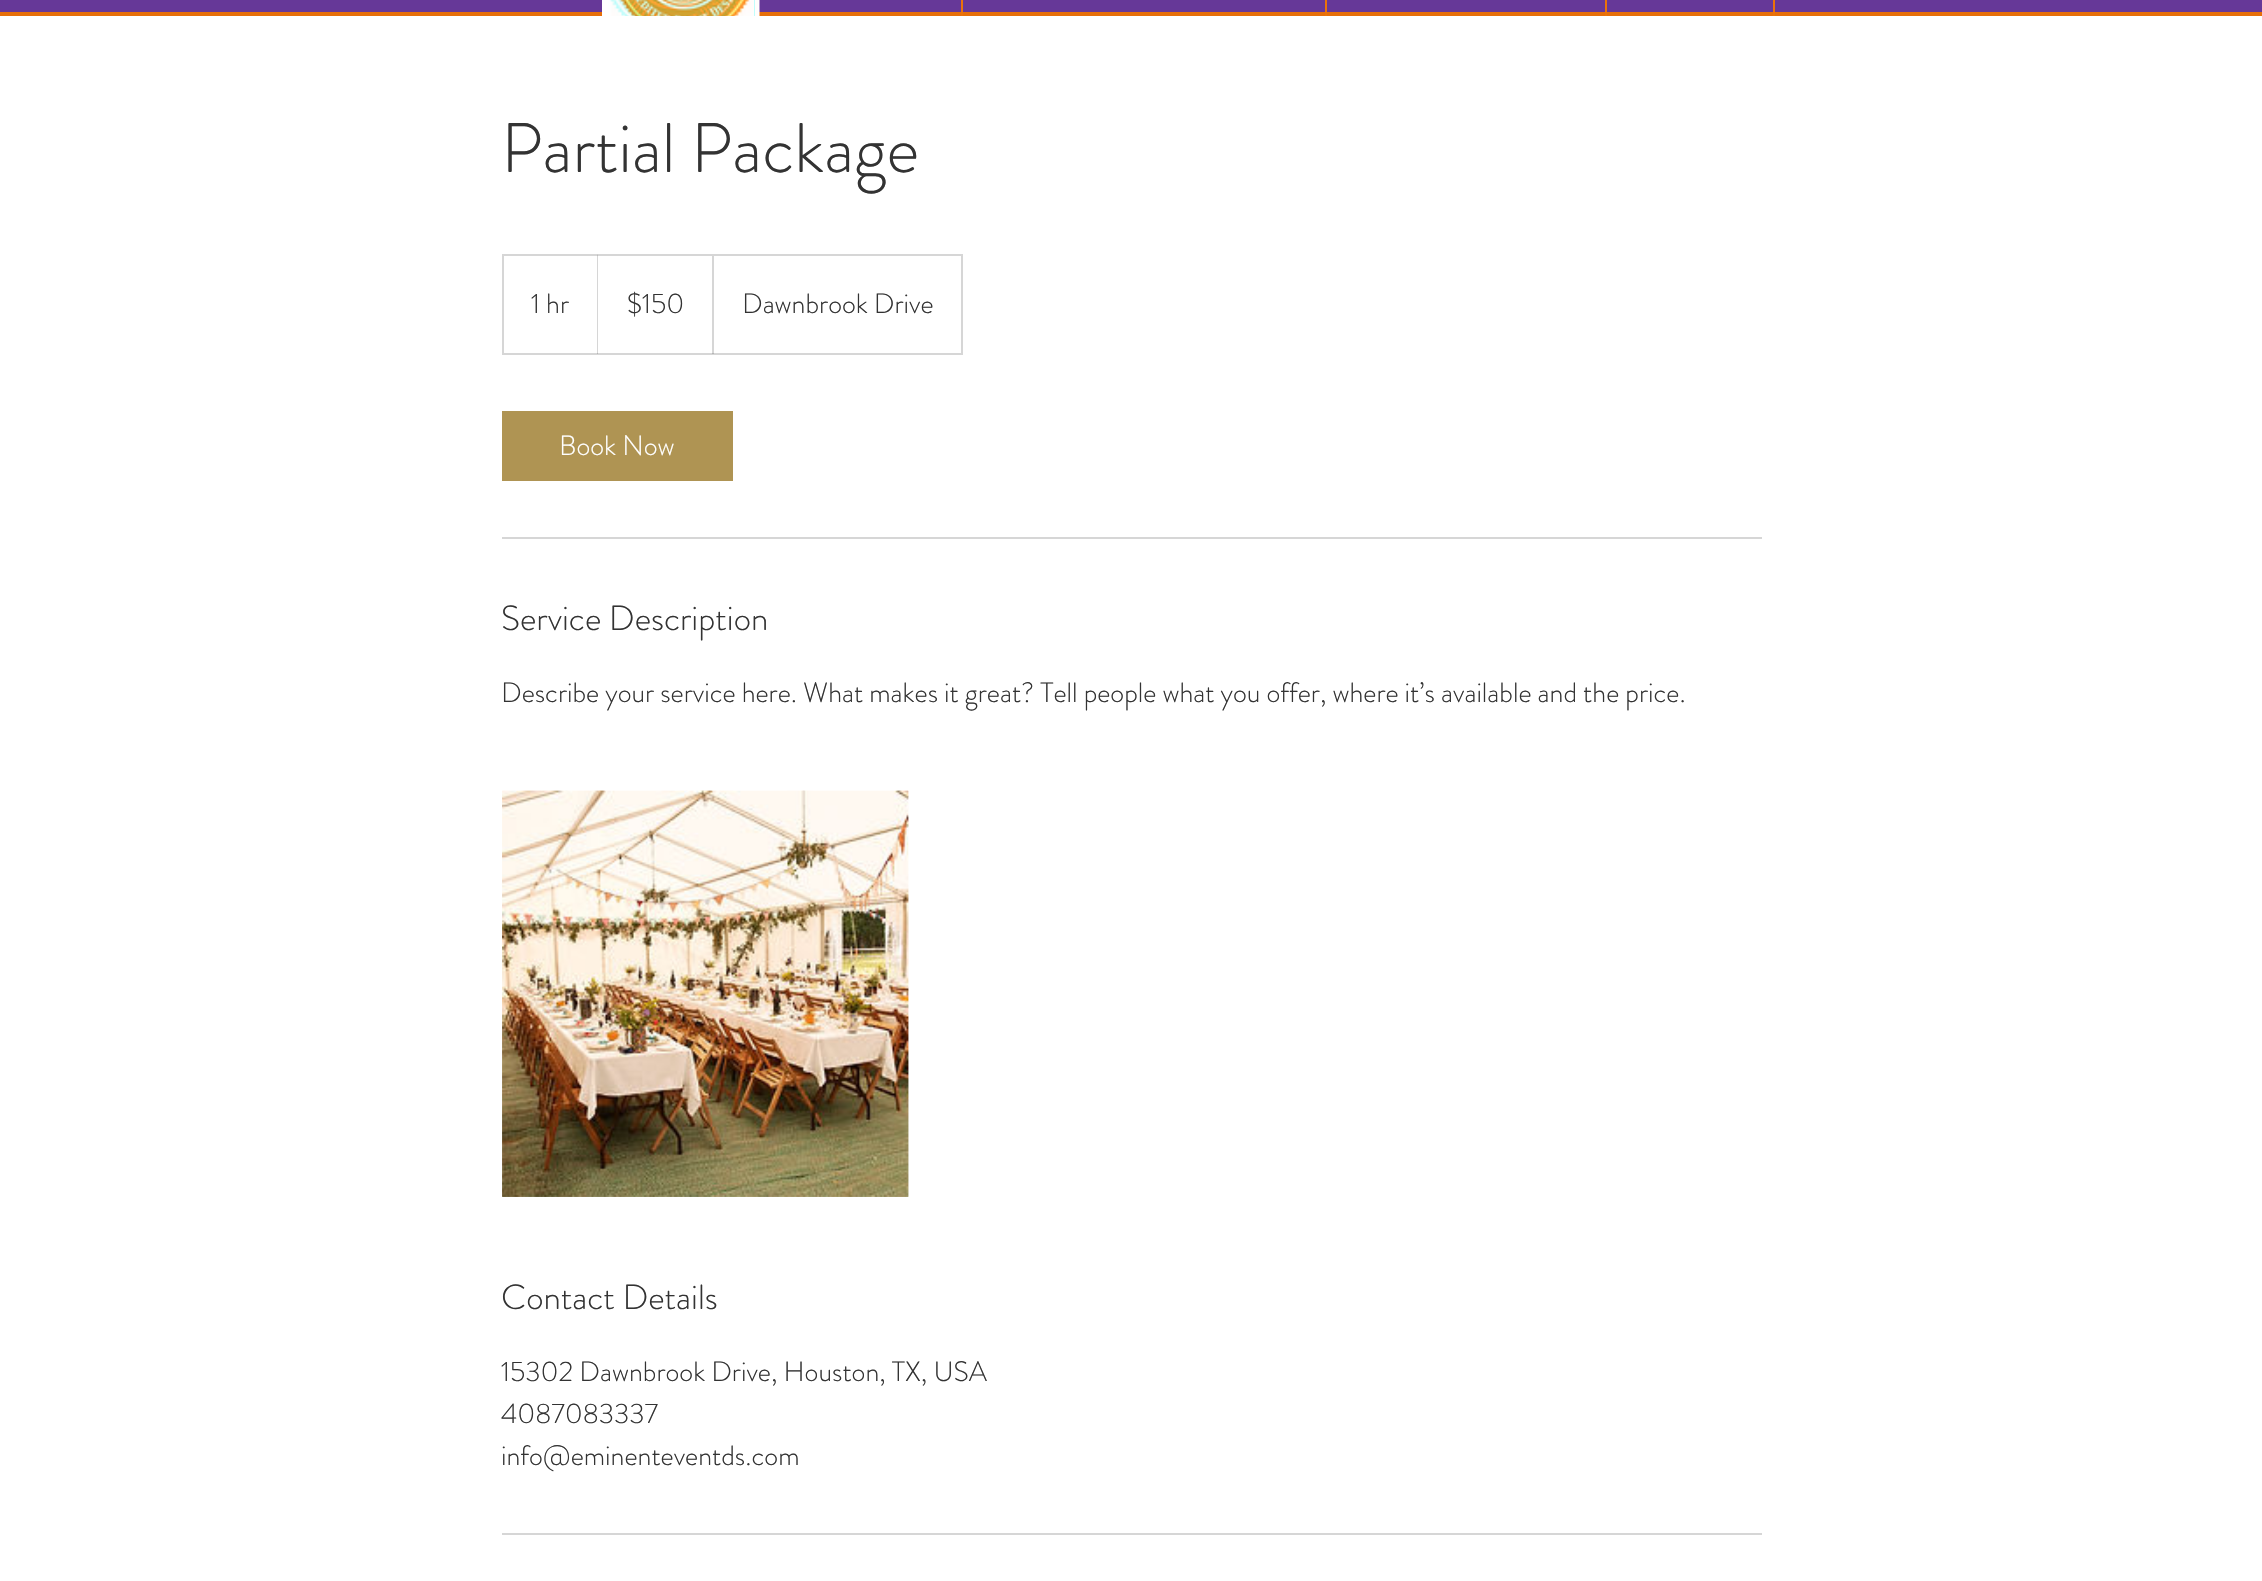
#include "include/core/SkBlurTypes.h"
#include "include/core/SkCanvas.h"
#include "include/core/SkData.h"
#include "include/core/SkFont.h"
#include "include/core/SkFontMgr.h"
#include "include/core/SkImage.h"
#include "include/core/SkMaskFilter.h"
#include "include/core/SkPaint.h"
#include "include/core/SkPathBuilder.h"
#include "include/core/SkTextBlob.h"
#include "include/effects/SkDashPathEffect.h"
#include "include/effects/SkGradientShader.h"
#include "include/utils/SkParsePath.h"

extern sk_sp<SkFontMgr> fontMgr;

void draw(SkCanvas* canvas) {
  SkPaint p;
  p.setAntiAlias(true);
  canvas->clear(SkColorSetRGB(102, 56, 152));
  p.setColor(SkColorSetRGB(230, 111, 9));
  canvas->drawRect(SkRect::MakeLTRB(0, 12, 2262, 16), p);
  canvas->drawImageRect(SkImages::DeferredFromEncodedData(SkData::MakeFromFileName("images/1.png")), SkRect::MakeLTRB(602, 0, 760, 16), SkSamplingOptions());
  p.setColor(SkColorSetRGB(235, 114, 9));
  canvas->drawRect(SkRect::MakeLTRB(961, 0, 963, 16), p);
  canvas->drawRect(SkRect::MakeLTRB(1325, 0, 1327, 16), p);
  canvas->drawRect(SkRect::MakeLTRB(1605, 0, 1607, 16), p);
  canvas->drawRect(SkRect::MakeLTRB(1773, 0, 1775, 16), p);
  p.setColor(SK_ColorWHITE);
  canvas->drawRect(SkRect::MakeLTRB(0, 16, 2262, 1581), p);
  p.setStyle(SkPaint::kStroke_Style);
  p.setStrokeWidth(2);
  p.setColor(SkColorSetRGB(214, 214, 214));
  canvas->drawRect(SkRect::MakeLTRB(503, 255, 962, 354), p);
  p.setStyle(SkPaint::kFill_Style);
  p.setColor(SkColorSetARGB(51, 51, 51, 51));
  canvas->drawPath(SkPathBuilder().moveTo(597, 354).lineTo(597, 254).lineTo(598, 256).lineTo(598, 354).close().detach(), p);
  canvas->save();
  canvas->clipRect(SkRect::MakeLTRB(504, 256, 961, 354));
  canvas->drawPath(SkPathBuilder().moveTo(712, 354).lineTo(712, 254).lineTo(714, 256).lineTo(714, 354).close().detach(), p);
  canvas->restore();
  p.setColor(SkColorSetRGB(175, 148, 83));
  canvas->drawRect(SkRect::MakeLTRB(502, 411, 733, 481), p);
  p.setColor(SkColorSetRGB(214, 214, 214));
  canvas->drawRect(SkRect::MakeLTRB(502, 537, 1762, 539), p);
  canvas->drawImageRect(SkImages::DeferredFromEncodedData(SkData::MakeFromFileName("images/2.png")), SkRect::MakeLTRB(502, 790, 909, 1197), SkSamplingOptions());
  canvas->drawImageRect(SkImages::DeferredFromEncodedData(SkData::MakeFromFileName("images/3.png")), SkRect::MakeLTRB(502, 790, 909, 1197), SkSamplingOptions());
  canvas->drawRect(SkRect::MakeLTRB(502, 1533, 1762, 1535), p);
  SkFont font1(fontMgr->matchFamilyStyle("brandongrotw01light", SkFontStyle(300, SkFontStyle::kNormal_Width, SkFontStyle::kUpright_Slant)), 70);
  font1.setSubpixel(true);
  p.setColor(SkColorSetRGB(51, 51, 51));
  canvas->drawString("Partial Package", 501, 172, font1, p);
  SkFont font2(fontMgr->matchFamilyStyle("brandongrotw01light", SkFontStyle(300, SkFontStyle::kNormal_Width, SkFontStyle::kUpright_Slant)), 28);
  font2.setSubpixel(true);
  canvas->drawString("1 hr", 531, 313, font2, p);
  canvas->drawString("$150", 627, 313, font2, p);
  canvas->drawString("Dawnbrook Drive", 742, 313, font2, p);
  p.setColor(SK_ColorWHITE);
  canvas->drawString("Book Now", 559, 455, font2, p);
  SkFont font3(fontMgr->matchFamilyStyle("brandongrotw01light", SkFontStyle(300, SkFontStyle::kNormal_Width, SkFontStyle::kUpright_Slant)), 35);
  font3.setSubpixel(true);
  p.setColor(SkColorSetRGB(51, 51, 51));
  canvas->drawString("Service Description", 501, 630, font3, p);
  canvas->drawString("Describe your service here. What makes it great? Tell people what you offer, where it’s available and the price.", 501, 702, font2, p);
  canvas->drawString("Contact Details", 501, 1309, font3, p);
  canvas->drawString("15302 Dawnbrook Drive, Houston, TX, USA", 501, 1381, font2, p);
  canvas->drawString("4087083337", 501, 1423, font2, p);
  canvas->drawString("info@eminenteventds.com", 501, 1465, font2, p);
}
